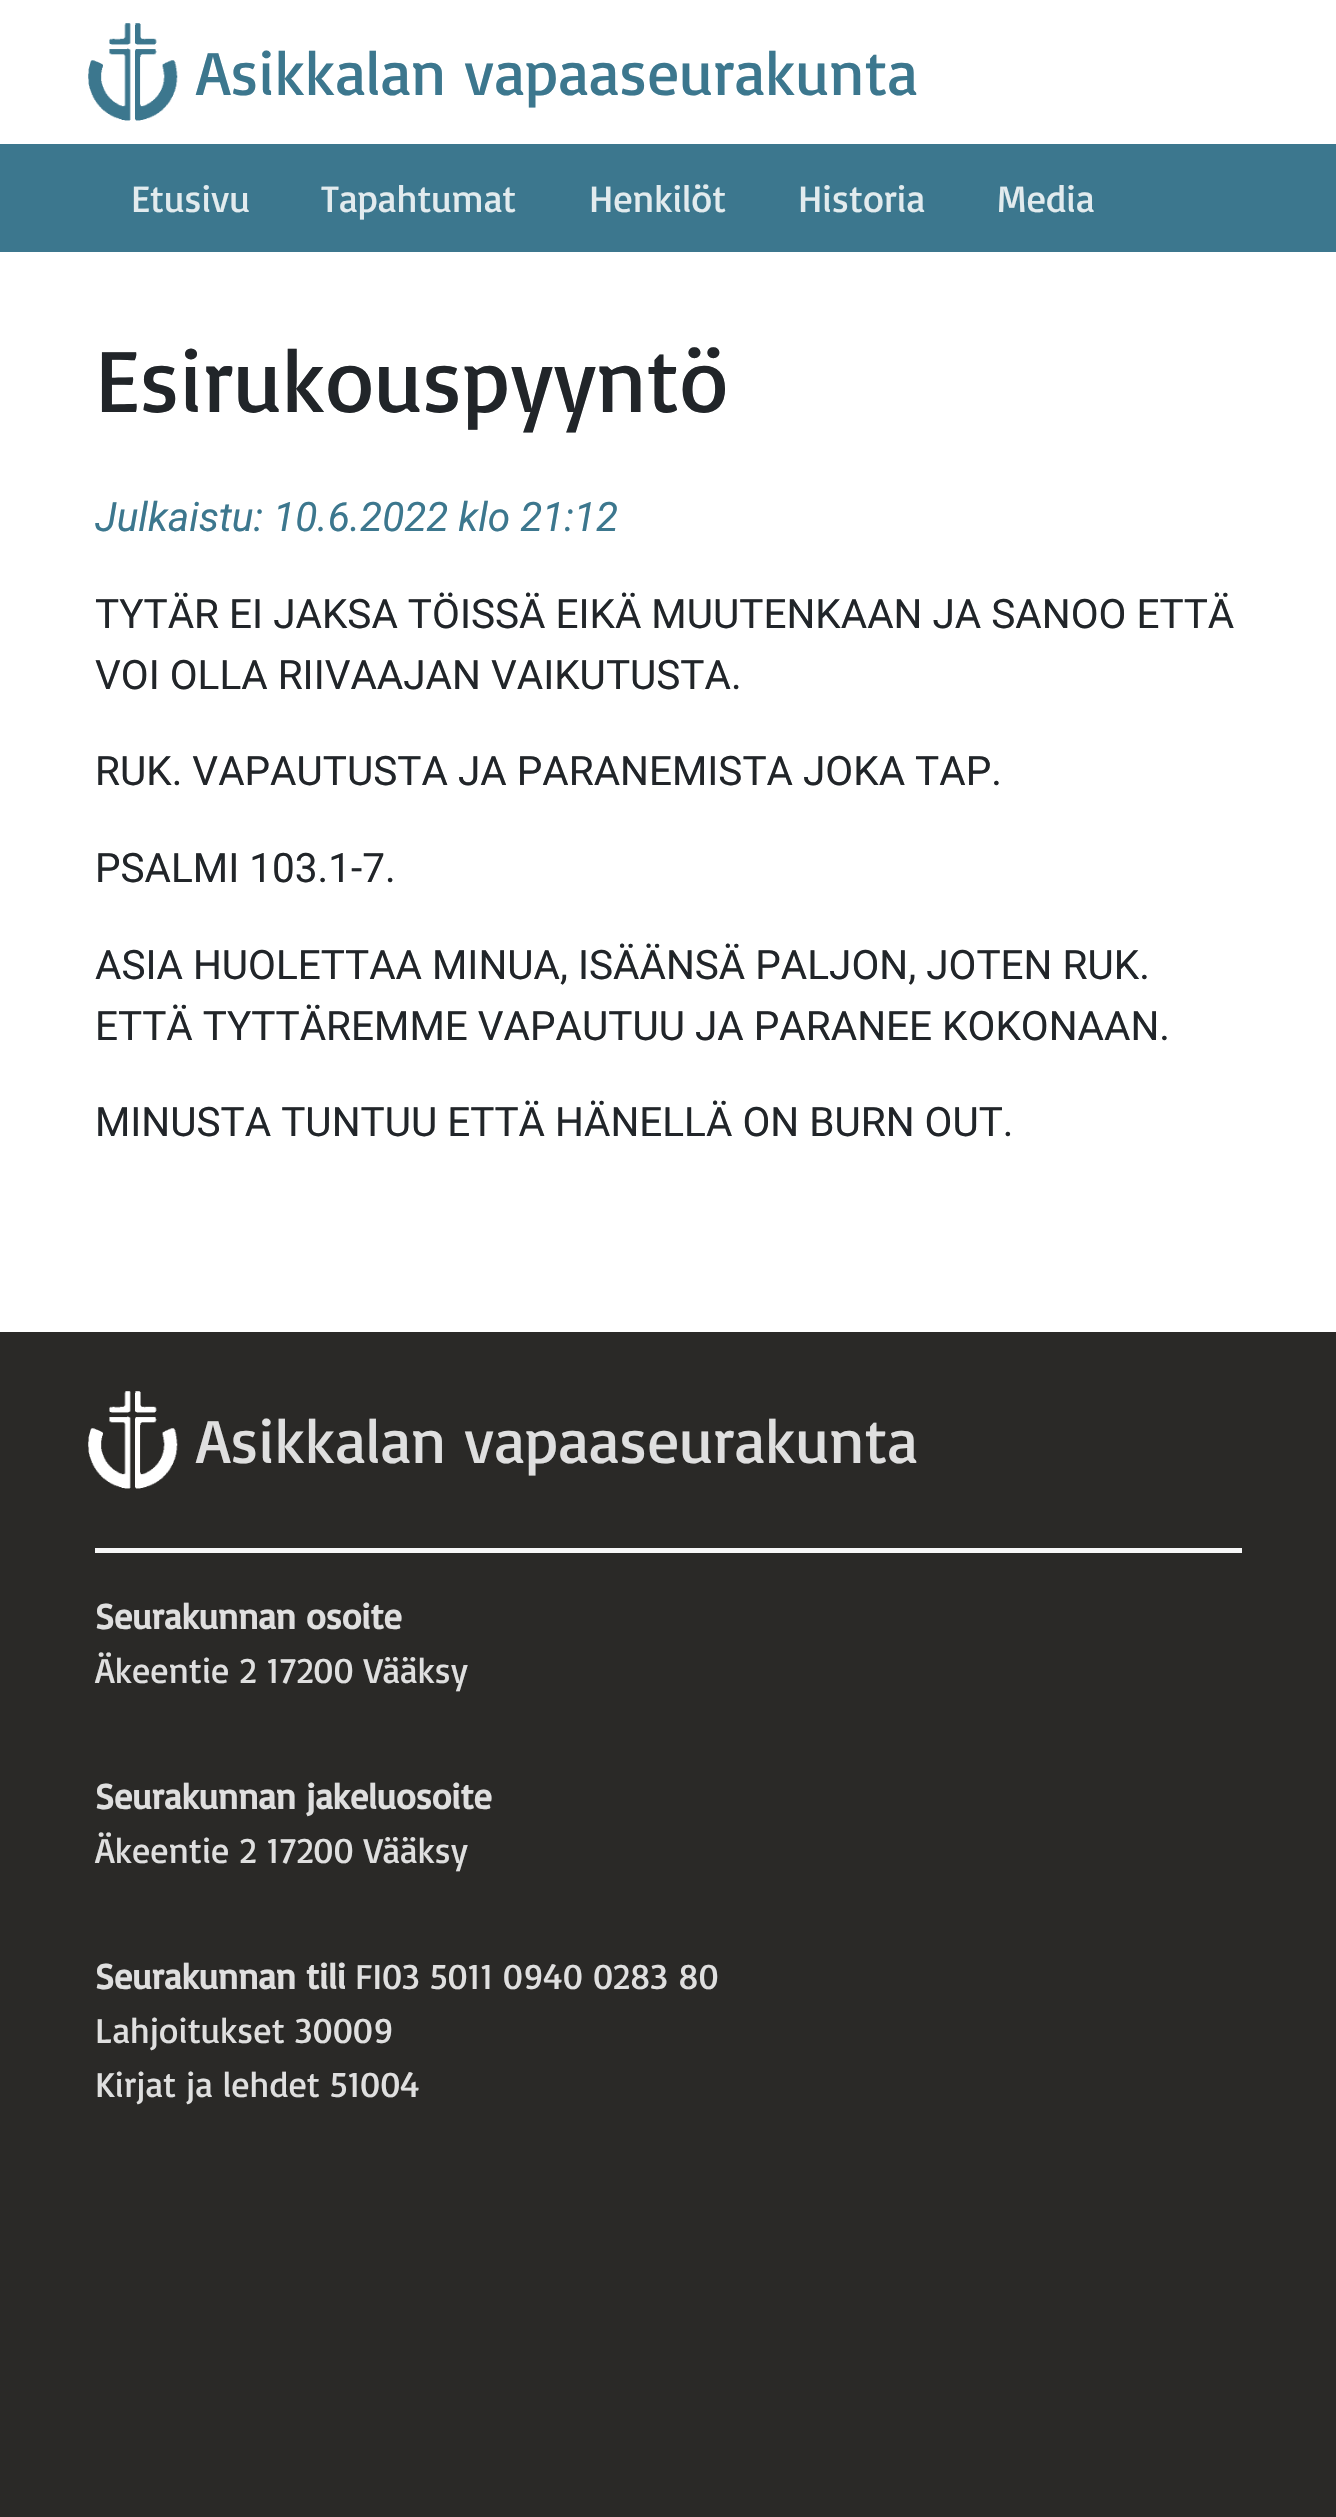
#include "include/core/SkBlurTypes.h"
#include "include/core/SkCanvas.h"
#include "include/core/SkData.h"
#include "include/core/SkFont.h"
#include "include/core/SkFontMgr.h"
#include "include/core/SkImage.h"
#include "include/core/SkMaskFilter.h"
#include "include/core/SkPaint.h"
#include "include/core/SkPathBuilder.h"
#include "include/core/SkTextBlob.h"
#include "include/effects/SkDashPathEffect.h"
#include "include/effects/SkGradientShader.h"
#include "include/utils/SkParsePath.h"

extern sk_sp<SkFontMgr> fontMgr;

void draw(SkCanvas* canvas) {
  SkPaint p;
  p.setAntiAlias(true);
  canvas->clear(SkColorSetRGB(42, 41, 39));
  p.setColor(SK_ColorWHITE);
  canvas->drawRect(SkRect::MakeLTRB(0, 0, 1336, 1332), p);
  canvas->drawImageRect(SkImages::DeferredFromEncodedData(SkData::MakeFromFileName("images/1.png")), SkRect::MakeLTRB(88, 23, 178, 121), SkSamplingOptions());
  p.setColor(SkColorSetRGB(60, 119, 142));
  canvas->drawRect(SkRect::MakeLTRB(0, 144, 1336, 252), p);
  canvas->drawImageRect(SkImages::DeferredFromEncodedData(SkData::MakeFromFileName("images/2.png")), SkRect::MakeLTRB(88, 1391, 178, 1489), SkSamplingOptions());
  p.setColor(SkColorSetRGB(247, 247, 247));
  canvas->drawRect(SkRect::MakeLTRB(95, 1548, 1242, 1553), p);
  SkFont font1(fontMgr->matchFamilyStyle("Basic", SkFontStyle::Normal()), 63);
  font1.setSubpixel(true);
  p.setColor(SkColorSetRGB(60, 119, 142));
  canvas->drawString("Asikkalan vapaaseurakunta", 196, 95, font1, p);
  SkFont font2(fontMgr->matchFamilyStyle("Basic", SkFontStyle::Normal()), 38.25f);
  font2.setSubpixel(true);
  p.setColor(SkColorSetRGB(226, 235, 238));
  canvas->drawString("Etusivu", 131, 212, font2, p);
  canvas->drawString("Tapahtumat", 321, 212, font2, p);
  canvas->drawString("Henkilöt", 589, 212, font2, p);
  canvas->drawString("Historia", 798, 212, font2, p);
  canvas->drawString("Media", 997, 212, font2, p);
  SkFont font3(fontMgr->matchFamilyStyle("Basic", SkFontStyle::Normal()), 90);
  font3.setSubpixel(true);
  p.setColor(SkColorSetRGB(33, 37, 41));
  canvas->drawString("Esirukouspyyntö", 95, 412, font3, p);
  SkFont font4(fontMgr->matchFamilyStyle("Roboto", SkFontStyle::Italic()), 40.5f);
  font4.setSubpixel(true);
  p.setColor(SkColorSetRGB(60, 119, 142));
  canvas->drawString("Julkaistu: 10.6.2022 klo 21:12", 95, 531, font4, p);
  SkFont font5(fontMgr->matchFamilyStyle("Roboto", SkFontStyle::Normal()), 40.5f);
  font5.setSubpixel(true);
  p.setColor(SkColorSetRGB(33, 37, 41));
  canvas->drawString("TYTÄR EI JAKSA TÖISSÄ EIKÄ MUUTENKAAN JA SANOO ETTÄ", 95, 628, font5, p);
  canvas->drawString("VOI OLLA RIIVAAJAN VAIKUTUSTA.", 95, 689, font5, p);
  canvas->drawString("RUK. VAPAUTUSTA JA PARANEMISTA JOKA TAP.", 95, 785, font5, p);
  canvas->drawString("PSALMI 103.1-7.", 95, 882, font5, p);
  canvas->drawString("ASIA HUOLETTAA MINUA, ISÄÄNSÄ PALJON, JOTEN RUK.", 95, 979, font5, p);
  canvas->drawString("ETTÄ TYTTÄREMME VAPAUTUU JA PARANEE KOKONAAN.", 95, 1040, font5, p);
  canvas->drawString("MINUSTA TUNTUU ETTÄ HÄNELLÄ ON BURN OUT.", 95, 1136, font5, p);
  p.setColor(SkColorSetRGB(223, 223, 223));
  canvas->drawString("Asikkalan vapaaseurakunta", 196, 1463, font1, p);
  SkFont font6(fontMgr->matchFamilyStyle("Basic", SkFontStyle::Bold()), 36);
  font6.setSubpixel(true);
  canvas->drawString("Seurakunnan osoite", 95, 1629, font6, p);
  SkFont font7(fontMgr->matchFamilyStyle("Basic", SkFontStyle::Normal()), 36);
  font7.setSubpixel(true);
  canvas->drawString("Äkeentie 2 17200 Vääksy", 95, 1683, font7, p);
  canvas->drawString("Seurakunnan jakeluosoite", 95, 1809, font6, p);
  canvas->drawString("Äkeentie 2 17200 Vääksy", 95, 1863, font7, p);
  canvas->drawString("Seurakunnan tili", 95, 1989, font6, p);
  canvas->drawString("FI03 5011 0940 0283 80", 355, 1989, font7, p);
  canvas->drawString("Lahjoitukset 30009", 95, 2043, font7, p);
  canvas->drawString("Kirjat ja lehdet 51004", 95, 2097, font7, p);
}
